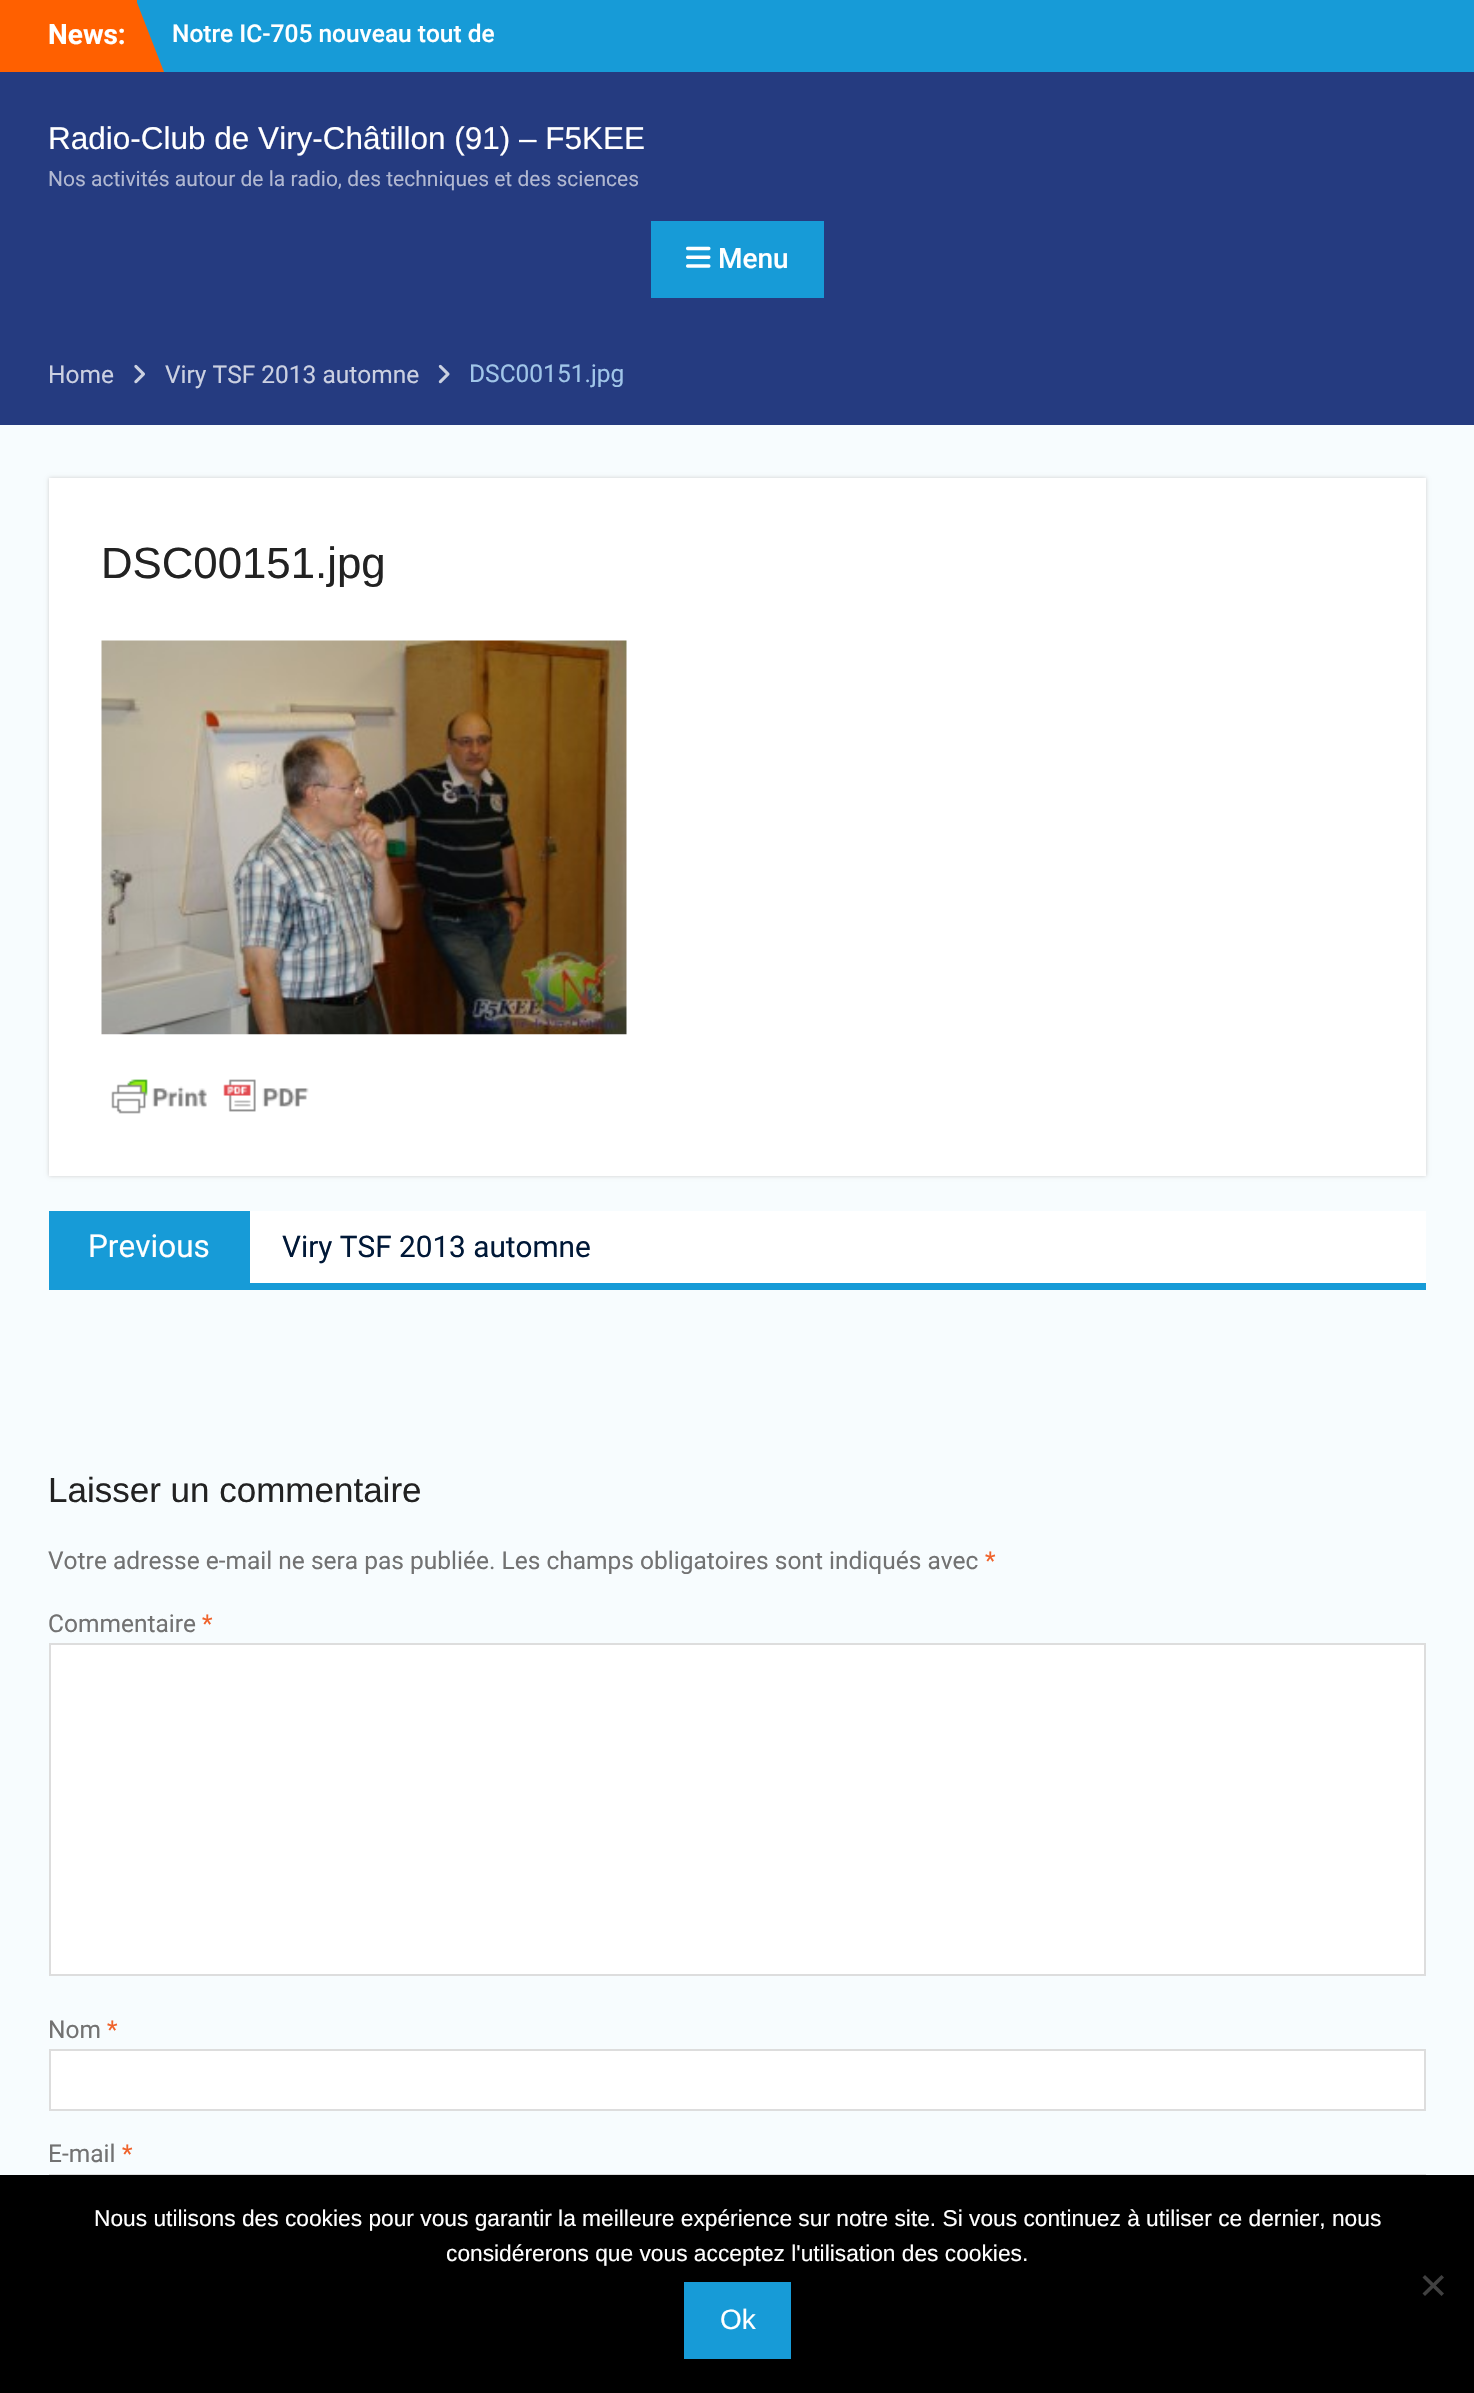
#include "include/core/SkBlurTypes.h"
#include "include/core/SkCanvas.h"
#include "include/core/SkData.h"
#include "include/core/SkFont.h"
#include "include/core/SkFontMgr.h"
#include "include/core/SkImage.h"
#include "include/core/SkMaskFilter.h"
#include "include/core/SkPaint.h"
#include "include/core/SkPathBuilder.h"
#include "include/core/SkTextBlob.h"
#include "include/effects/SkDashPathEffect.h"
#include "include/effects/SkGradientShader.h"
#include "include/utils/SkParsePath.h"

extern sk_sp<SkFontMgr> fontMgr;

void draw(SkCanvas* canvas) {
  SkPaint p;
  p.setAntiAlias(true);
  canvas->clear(SkColorSetRGB(247, 252, 254));
  p.setColor(SkColorSetRGB(23, 155, 215));
  canvas->drawRect(SkRect::MakeLTRB(137, 0, 1474, 72), p);
  p.setColor(SkColorSetRGB(255, 96, 0));
  canvas->drawRect(SkRect::MakeLTRB(0, 0, 137, 72), p);
  canvas->drawPath(SkPathBuilder().moveTo(136, 72).lineTo(136, 0).lineTo(164, 72).close().detach(), p);
  p.setColor(SkColorSetRGB(37, 59, 128));
  canvas->drawRect(SkRect::MakeLTRB(0, 72, 1474, 425), p);
  p.setColor(SkColorSetRGB(23, 155, 215));
  canvas->drawRect(SkRect::MakeLTRB(651, 221, 824, 298), p);
  canvas->drawImageRect(SkImages::DeferredFromEncodedData(SkData::MakeFromFileName("images/1.png")), SkRect::MakeLTRB(686, 246, 711, 268), SkSamplingOptions());
  canvas->drawImageRect(SkImages::DeferredFromEncodedData(SkData::MakeFromFileName("images/2.png")), SkRect::MakeLTRB(134, 364, 145, 384), SkSamplingOptions());
  canvas->drawImageRect(SkImages::DeferredFromEncodedData(SkData::MakeFromFileName("images/3.png")), SkRect::MakeLTRB(438, 364, 450, 384), SkSamplingOptions());
  p.setColor(SkColorSetRGB(207, 207, 207));
  p.setMaskFilter(SkMaskFilter::MakeBlur(kNormal_SkBlurStyle, 2));
  canvas->drawRect(SkRect::MakeLTRB(49, 478, 1426, 1176), p);
  p.setMaskFilter(nullptr);
  p.setColor(SK_ColorWHITE);
  canvas->drawRect(SkRect::MakeLTRB(49, 478, 1426, 1176), p);
  canvas->drawImageRect(SkImages::DeferredFromEncodedData(SkData::MakeFromFileName("images/4.png")), SkRect::MakeLTRB(101, 640, 627, 1035), SkSamplingOptions());
  canvas->drawImageRect(SkImages::DeferredFromEncodedData(SkData::MakeFromFileName("images/5.png")), SkRect::MakeLTRB(111, 1079, 309, 1114), SkSamplingOptions());
  p.setColor(SkColorSetRGB(23, 155, 215));
  canvas->drawRect(SkRect::MakeLTRB(49, 1283, 1426, 1290), p);
  p.setColor(SK_ColorWHITE);
  canvas->drawRect(SkRect::MakeLTRB(250, 1211, 1426, 1283), p);
  p.setColor(SkColorSetRGB(23, 155, 215));
  canvas->drawRect(SkRect::MakeLTRB(49, 1211, 250, 1283), p);
  p.setColor(SK_ColorWHITE);
  canvas->drawRect(SkRect::MakeLTRB(50, 1644, 1425, 1975), p);
  p.setStyle(SkPaint::kStroke_Style);
  p.setStrokeWidth(2);
  p.setColor(SkColorSetRGB(221, 221, 221));
  canvas->drawRect(SkRect::MakeLTRB(50, 1644, 1425, 1975), p);
  p.setStyle(SkPaint::kFill_Style);
  p.setColor(SK_ColorWHITE);
  canvas->drawRect(SkRect::MakeLTRB(50, 2050, 1425, 2110), p);
  p.setStyle(SkPaint::kStroke_Style);
  p.setColor(SkColorSetRGB(221, 221, 221));
  canvas->drawRect(SkRect::MakeLTRB(50, 2050, 1425, 2110), p);
  canvas->drawRect(SkRect::MakeLTRB(50, 2175, 1425, 2234), p);
  p.setStyle(SkPaint::kFill_Style);
  p.setColor(SK_ColorBLACK);
  canvas->drawRect(SkRect::MakeLTRB(0, 2175, 1474, 2393), p);
  p.setColor(SkColorSetRGB(64, 64, 64));
  canvas->drawPath(SkPathBuilder().moveTo(1441.5f, 2275).lineTo(1444, 2277.5f).lineTo(1425, 2296).lineTo(1422.5f, 2293.5f).close().detach(), p);
  canvas->drawPath(SkPathBuilder().moveTo(1422.5f, 2277.5f).lineTo(1425, 2275).lineTo(1444, 2293.5f).lineTo(1441.5f, 2296).close().detach(), p);
  p.setColor(SkColorSetRGB(23, 155, 215));
  canvas->drawRect(SkRect::MakeLTRB(684, 2282, 791, 2359), p);
  SkFont font1(fontMgr->matchFamilyStyle("Roboto", SkFontStyle::Bold()), 28);
  font1.setSubpixel(true);
  p.setColor(SK_ColorWHITE);
  canvas->drawString("News:", 48, 44, font1, p);
  SkFont font2(fontMgr->matchFamilyStyle("Roboto", SkFontStyle(500, SkFontStyle::kNormal_Width, SkFontStyle::kUpright_Slant)), 24.5f);
  font2.setSubpixel(true);
  canvas->drawString("Notre IC-705 nouveau tout de", 172, 42, font2, p);
  SkFont font3(fontMgr->matchFamilyStyle("Liberation Sans", SkFontStyle::Normal()), 31.5f);
  font3.setSubpixel(true);
  canvas->drawString("Radio-Club de Viry-Châtillon (91) – F5KEE", 48, 149, font3, p);
  SkFont font4(fontMgr->matchFamilyStyle("Roboto", SkFontStyle::Normal()), 21);
  font4.setSubpixel(true);
  p.setColor(SkColorSetRGB(177, 184, 209));
  canvas->drawString("Nos activités autour de la radio, des techniques et des sciences", 48, 186, font4, p);
  SkFont font5(fontMgr->matchFamilyStyle("Roboto", SkFontStyle(500, SkFontStyle::kNormal_Width, SkFontStyle::kUpright_Slant)), 28);
  font5.setSubpixel(true);
  p.setColor(SK_ColorWHITE);
  canvas->drawString("Menu", 718, 268, font5, p);
  SkFont font6(fontMgr->matchFamilyStyle("Roboto", SkFontStyle::Normal()), 24.5f);
  font6.setSubpixel(true);
  p.setColor(SkColorSetRGB(203, 208, 225));
  canvas->drawString("Home", 48, 383, font6, p);
  canvas->drawString("Viry TSF 2013 automne", 165, 383, font6, p);
  p.setColor(SkColorSetRGB(160, 197, 232));
  canvas->drawString("DSC00151.jpg", 469, 382, font6, p);
  SkFont font7(fontMgr->matchFamilyStyle("Liberation Sans", SkFontStyle::Normal()), 43.75f);
  font7.setSubpixel(true);
  p.setColor(SkColorSetRGB(34, 34, 34));
  canvas->drawString("DSC00151.jpg", 101, 578, font7, p);
  SkFont font8(fontMgr->matchFamilyStyle("Roboto", SkFontStyle::Normal()), 31.5f);
  font8.setSubpixel(true);
  p.setColor(SK_ColorWHITE);
  canvas->drawString("Previous", 88, 1257, font8, p);
  SkFont font9(fontMgr->matchFamilyStyle("Roboto", SkFontStyle::Normal()), 29.75f);
  font9.setSubpixel(true);
  p.setColor(SkColorSetRGB(0, 24, 55));
  canvas->drawString("Viry TSF 2013 automne", 282, 1257, font9, p);
  SkFont font10(fontMgr->matchFamilyStyle("Liberation Sans", SkFontStyle::Normal()), 35);
  font10.setSubpixel(true);
  p.setColor(SkColorSetRGB(34, 34, 34));
  canvas->drawString("Laisser un commentaire", 48, 1502, font10, p);
  p.setColor(SkColorSetRGB(114, 114, 114));
  canvas->drawString("Votre adresse e-mail ne sera pas publiée. Les champs obligatoires sont indiqués avec", 48, 1569, font6, p);
  p.setColor(SkColorSetRGB(240, 99, 43));
  canvas->drawString("*", 985, 1569, font6, p);
  p.setColor(SkColorSetRGB(114, 114, 114));
  canvas->drawString("Commentaire", 48, 1632, font6, p);
  p.setColor(SkColorSetRGB(240, 99, 43));
  canvas->drawString("*", 202, 1632, font6, p);
  p.setColor(SkColorSetRGB(114, 114, 114));
  canvas->drawString("Nom", 48, 2038, font6, p);
  p.setColor(SkColorSetRGB(240, 99, 43));
  canvas->drawString("*", 107, 2038, font6, p);
  p.setColor(SkColorSetRGB(114, 114, 114));
  canvas->drawString("E-mail", 48, 2162, font6, p);
  p.setColor(SkColorSetRGB(240, 99, 43));
  canvas->drawString("*", 122, 2162, font6, p);
  SkFont font11(fontMgr->matchFamilyStyle("Liberation Sans", SkFontStyle::Normal()), 22.75f);
  font11.setSubpixel(true);
  p.setColor(SK_ColorWHITE);
  canvas->drawString("Nous utilisons des cookies pour vous garantir la meilleure expérience sur notre site. Si vous continuez à utiliser ce dernier, nous", 94, 2226, font11, p);
  canvas->drawString("considérerons que vous acceptez l'utilisation des cookies.", 446, 2261, font11, p);
  SkFont font12(fontMgr->matchFamilyStyle("Liberation Sans", SkFontStyle::Normal()), 28);
  font12.setSubpixel(true);
  canvas->drawString("Ok", 720, 2329, font12, p);
}
